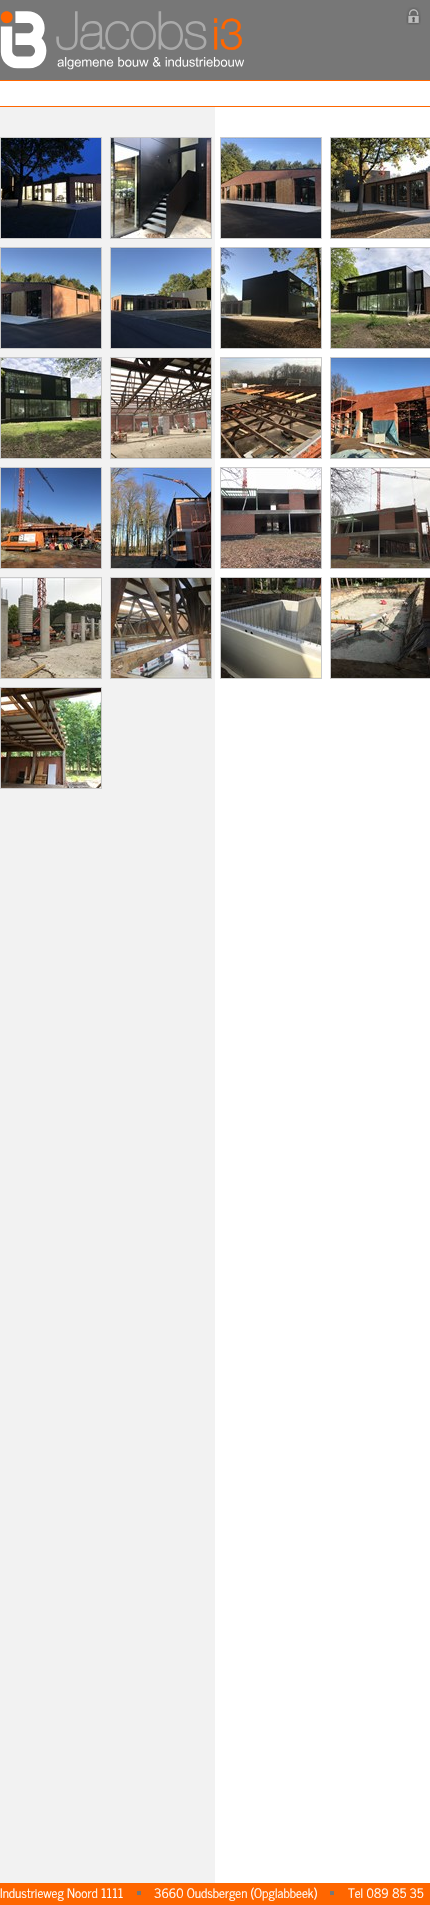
#include "include/core/SkBlurTypes.h"
#include "include/core/SkCanvas.h"
#include "include/core/SkData.h"
#include "include/core/SkFont.h"
#include "include/core/SkFontMgr.h"
#include "include/core/SkImage.h"
#include "include/core/SkMaskFilter.h"
#include "include/core/SkPaint.h"
#include "include/core/SkPathBuilder.h"
#include "include/core/SkTextBlob.h"
#include "include/effects/SkDashPathEffect.h"
#include "include/effects/SkGradientShader.h"
#include "include/utils/SkParsePath.h"

extern sk_sp<SkFontMgr> fontMgr;

void draw(SkCanvas* canvas) {
  SkPaint p;
  p.setAntiAlias(true);
  canvas->clear(SK_ColorWHITE);
  p.setColor(SkColorSetRGB(242, 242, 242));
  canvas->drawRect(SkRect::MakeLTRB(0, 107, 215, 1883), p);
  p.setColor(SkColorSetRGB(119, 119, 119));
  canvas->drawRect(SkRect::MakeLTRB(0, 0, 430, 80), p);
  p.setColor(SkColorSetRGB(255, 102, 0));
  canvas->drawRect(SkRect::MakeLTRB(0, 80, 430, 81), p);
  canvas->drawImageRect(SkImages::DeferredFromEncodedData(SkData::MakeFromFileName("images/1.png")), SkRect::MakeLTRB(0, 11, 244, 70), SkSamplingOptions());
  canvas->drawImageRect(SkImages::DeferredFromEncodedData(SkData::MakeFromFileName("images/2.png")), SkRect::MakeLTRB(406, 7, 421, 25), SkSamplingOptions());
  canvas->drawRect(SkRect::MakeLTRB(0, 106, 430, 107), p);
  p.setColor(SkColorSetRGB(202, 202, 202));
  canvas->drawRect(SkRect::MakeLTRB(0, 137, 102, 239), p);
  canvas->drawImageRect(SkImages::DeferredFromEncodedData(SkData::MakeFromFileName("images/3.png")), SkRect::MakeLTRB(1, 138, 101, 238), SkSamplingOptions());
  canvas->drawRect(SkRect::MakeLTRB(110, 137, 212, 239), p);
  canvas->drawImageRect(SkImages::DeferredFromEncodedData(SkData::MakeFromFileName("images/4.png")), SkRect::MakeLTRB(111, 138, 211, 238), SkSamplingOptions());
  canvas->drawRect(SkRect::MakeLTRB(220, 137, 322, 239), p);
  canvas->drawImageRect(SkImages::DeferredFromEncodedData(SkData::MakeFromFileName("images/5.png")), SkRect::MakeLTRB(221, 138, 321, 238), SkSamplingOptions());
  canvas->drawRect(SkRect::MakeLTRB(330, 137, 430, 239), p);
  canvas->drawImageRect(SkImages::DeferredFromEncodedData(SkData::MakeFromFileName("images/6.png")), SkRect::MakeLTRB(331, 138, 430, 238), SkSamplingOptions());
  canvas->drawRect(SkRect::MakeLTRB(0, 247, 102, 349), p);
  canvas->drawImageRect(SkImages::DeferredFromEncodedData(SkData::MakeFromFileName("images/7.png")), SkRect::MakeLTRB(1, 248, 101, 348), SkSamplingOptions());
  canvas->drawRect(SkRect::MakeLTRB(110, 247, 212, 349), p);
  canvas->drawImageRect(SkImages::DeferredFromEncodedData(SkData::MakeFromFileName("images/8.png")), SkRect::MakeLTRB(111, 248, 211, 348), SkSamplingOptions());
  canvas->drawRect(SkRect::MakeLTRB(220, 247, 322, 349), p);
  canvas->drawImageRect(SkImages::DeferredFromEncodedData(SkData::MakeFromFileName("images/9.png")), SkRect::MakeLTRB(221, 248, 321, 348), SkSamplingOptions());
  canvas->drawRect(SkRect::MakeLTRB(330, 247, 430, 349), p);
  canvas->drawImageRect(SkImages::DeferredFromEncodedData(SkData::MakeFromFileName("images/10.png")), SkRect::MakeLTRB(331, 248, 430, 348), SkSamplingOptions());
  canvas->drawRect(SkRect::MakeLTRB(0, 357, 102, 459), p);
  canvas->drawImageRect(SkImages::DeferredFromEncodedData(SkData::MakeFromFileName("images/11.png")), SkRect::MakeLTRB(1, 358, 101, 458), SkSamplingOptions());
  canvas->drawRect(SkRect::MakeLTRB(110, 357, 212, 459), p);
  canvas->drawImageRect(SkImages::DeferredFromEncodedData(SkData::MakeFromFileName("images/12.png")), SkRect::MakeLTRB(111, 358, 211, 458), SkSamplingOptions());
  canvas->drawRect(SkRect::MakeLTRB(220, 357, 322, 459), p);
  canvas->drawImageRect(SkImages::DeferredFromEncodedData(SkData::MakeFromFileName("images/13.png")), SkRect::MakeLTRB(221, 358, 321, 458), SkSamplingOptions());
  canvas->drawRect(SkRect::MakeLTRB(330, 357, 430, 459), p);
  canvas->drawImageRect(SkImages::DeferredFromEncodedData(SkData::MakeFromFileName("images/14.png")), SkRect::MakeLTRB(331, 358, 430, 458), SkSamplingOptions());
  canvas->drawRect(SkRect::MakeLTRB(0, 467, 102, 569), p);
  canvas->drawImageRect(SkImages::DeferredFromEncodedData(SkData::MakeFromFileName("images/15.png")), SkRect::MakeLTRB(1, 468, 101, 568), SkSamplingOptions());
  canvas->drawRect(SkRect::MakeLTRB(110, 467, 212, 569), p);
  canvas->drawImageRect(SkImages::DeferredFromEncodedData(SkData::MakeFromFileName("images/16.png")), SkRect::MakeLTRB(111, 468, 211, 568), SkSamplingOptions());
  canvas->drawRect(SkRect::MakeLTRB(220, 467, 322, 569), p);
  canvas->drawImageRect(SkImages::DeferredFromEncodedData(SkData::MakeFromFileName("images/17.png")), SkRect::MakeLTRB(221, 468, 321, 568), SkSamplingOptions());
  canvas->drawRect(SkRect::MakeLTRB(330, 467, 430, 569), p);
  canvas->drawImageRect(SkImages::DeferredFromEncodedData(SkData::MakeFromFileName("images/18.png")), SkRect::MakeLTRB(331, 468, 430, 568), SkSamplingOptions());
  canvas->drawRect(SkRect::MakeLTRB(0, 577, 102, 679), p);
  canvas->drawImageRect(SkImages::DeferredFromEncodedData(SkData::MakeFromFileName("images/19.png")), SkRect::MakeLTRB(1, 578, 101, 678), SkSamplingOptions());
  canvas->drawRect(SkRect::MakeLTRB(110, 577, 212, 679), p);
  canvas->drawImageRect(SkImages::DeferredFromEncodedData(SkData::MakeFromFileName("images/20.png")), SkRect::MakeLTRB(111, 578, 211, 678), SkSamplingOptions());
  canvas->drawRect(SkRect::MakeLTRB(220, 577, 322, 679), p);
  canvas->drawImageRect(SkImages::DeferredFromEncodedData(SkData::MakeFromFileName("images/21.png")), SkRect::MakeLTRB(221, 578, 321, 678), SkSamplingOptions());
  canvas->drawRect(SkRect::MakeLTRB(330, 577, 430, 679), p);
  canvas->drawImageRect(SkImages::DeferredFromEncodedData(SkData::MakeFromFileName("images/22.png")), SkRect::MakeLTRB(331, 578, 430, 678), SkSamplingOptions());
  canvas->drawRect(SkRect::MakeLTRB(0, 687, 102, 789), p);
  canvas->drawImageRect(SkImages::DeferredFromEncodedData(SkData::MakeFromFileName("images/23.png")), SkRect::MakeLTRB(1, 688, 101, 788), SkSamplingOptions());
  p.setColor(SkColorSetRGB(255, 102, 0));
  canvas->drawRect(SkRect::MakeLTRB(0, 1883, 430, 1905), p);
  p.setColor(SkColorSetRGB(119, 119, 119));
  canvas->drawRect(SkRect::MakeLTRB(137, 1891, 141, 1895), p);
  canvas->drawRect(SkRect::MakeLTRB(330, 1891, 334, 1895), p);
  SkFont font1(fontMgr->matchFamilyStyle("News Cycle", SkFontStyle::Normal()), 13);
  font1.setSubpixel(true);
  p.setColor(SK_ColorWHITE);
  canvas->drawString("Industrieweg Noord 1111", 0, 1898, font1, p);
  canvas->drawString("3660 Oudsbergen (Opglabbeek)", 154, 1898, font1, p);
  canvas->drawString("Tel 089 85 35", 348, 1898, font1, p);
}
